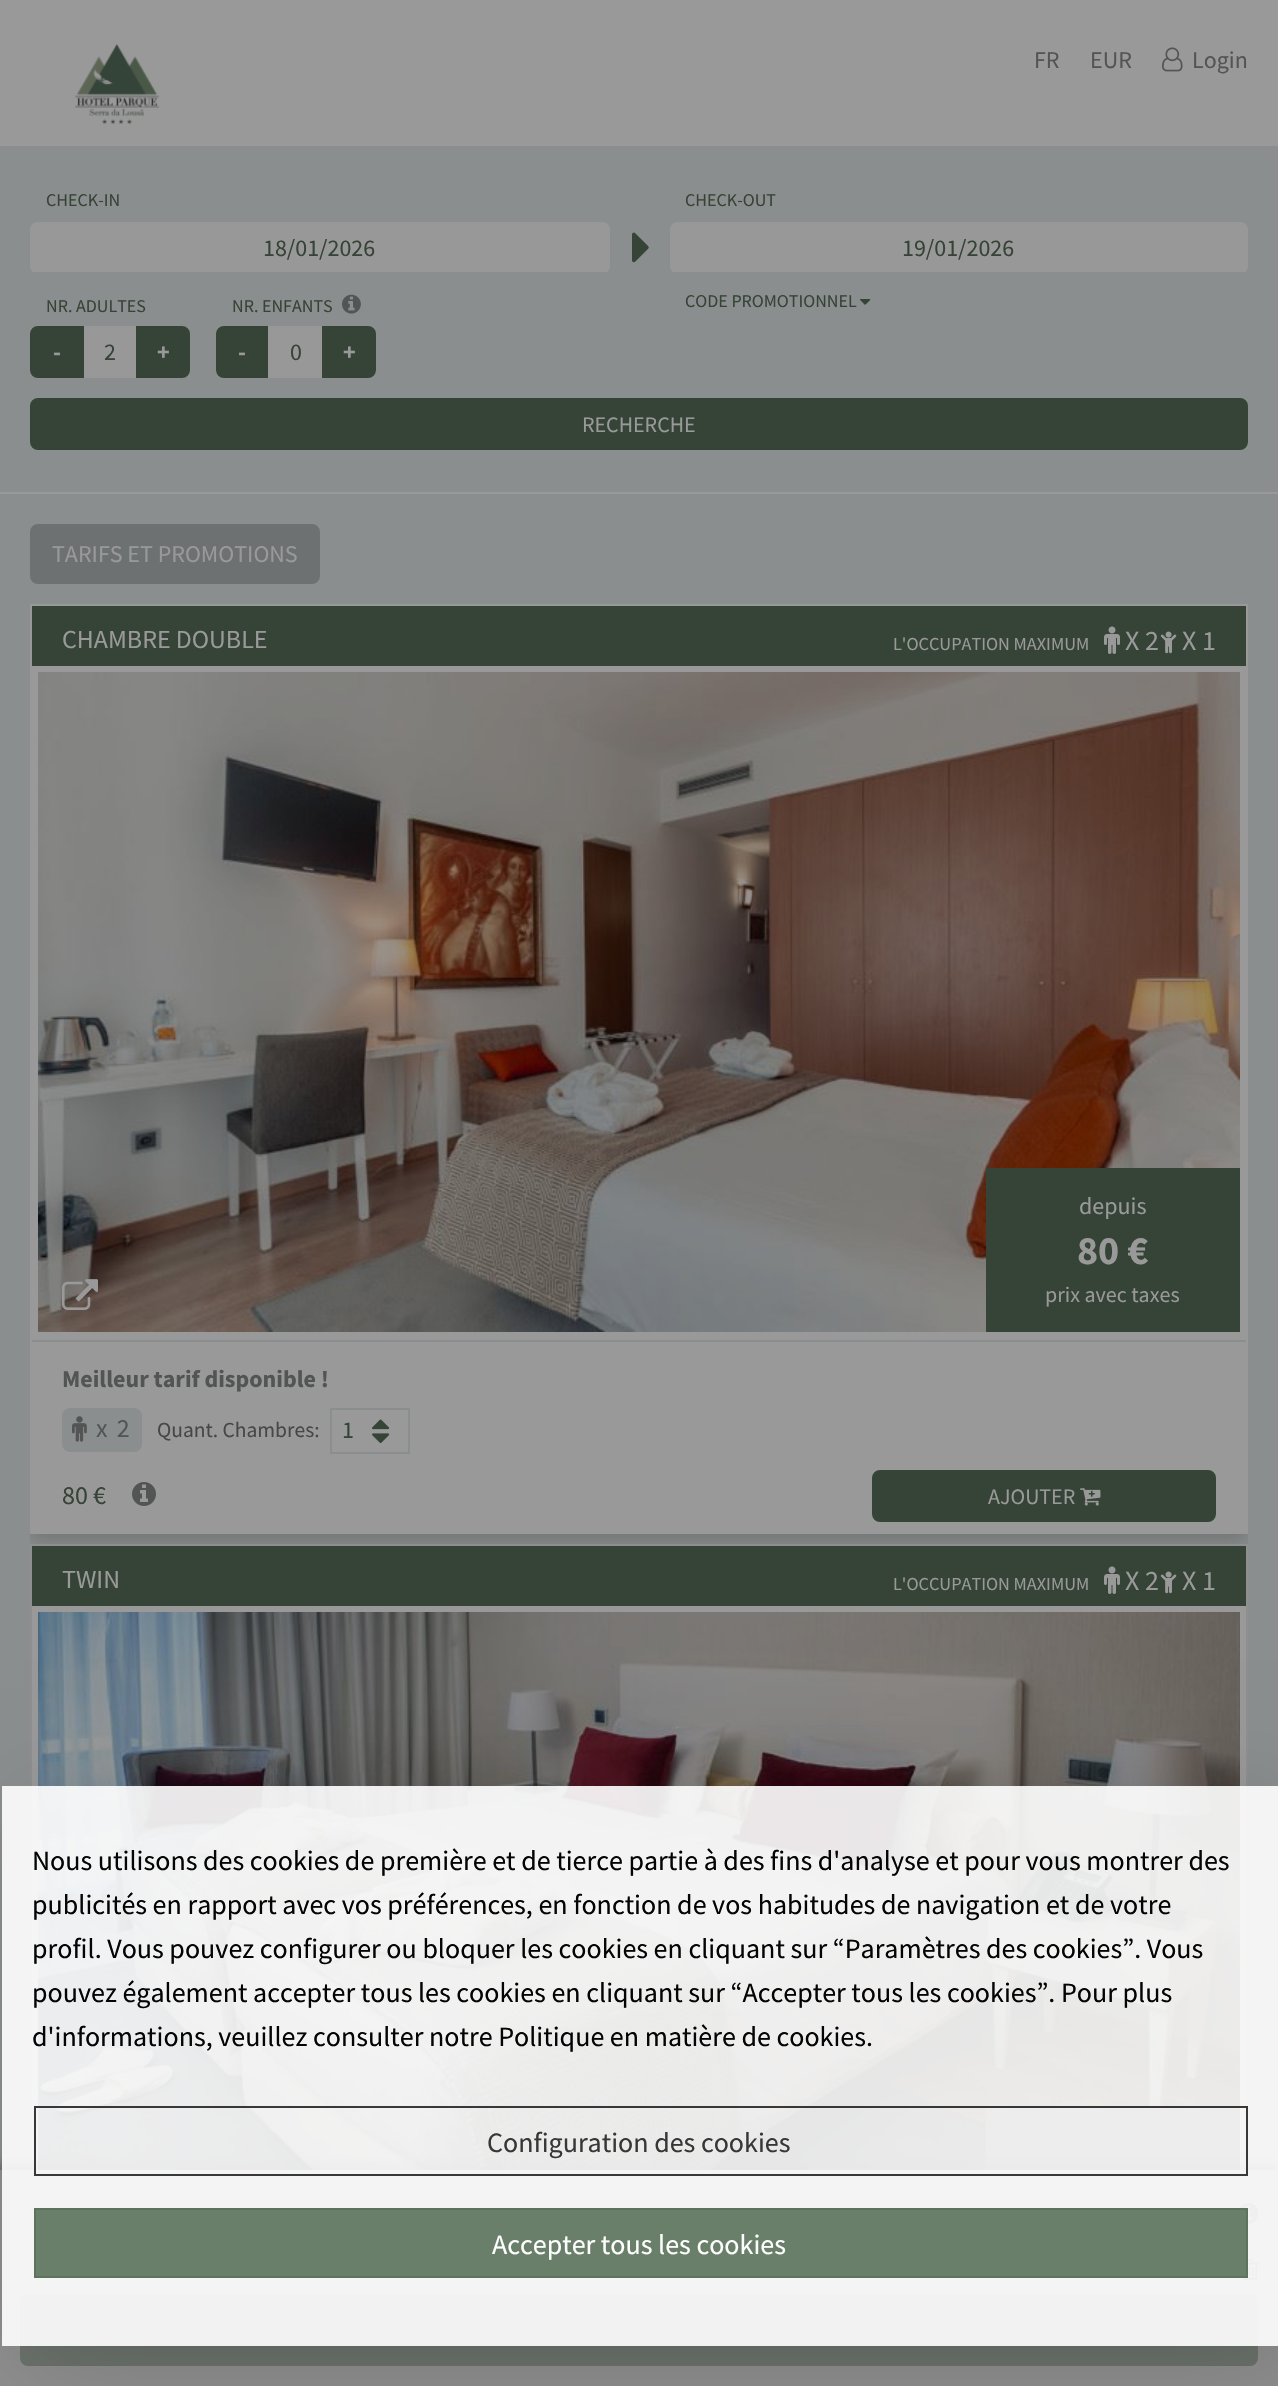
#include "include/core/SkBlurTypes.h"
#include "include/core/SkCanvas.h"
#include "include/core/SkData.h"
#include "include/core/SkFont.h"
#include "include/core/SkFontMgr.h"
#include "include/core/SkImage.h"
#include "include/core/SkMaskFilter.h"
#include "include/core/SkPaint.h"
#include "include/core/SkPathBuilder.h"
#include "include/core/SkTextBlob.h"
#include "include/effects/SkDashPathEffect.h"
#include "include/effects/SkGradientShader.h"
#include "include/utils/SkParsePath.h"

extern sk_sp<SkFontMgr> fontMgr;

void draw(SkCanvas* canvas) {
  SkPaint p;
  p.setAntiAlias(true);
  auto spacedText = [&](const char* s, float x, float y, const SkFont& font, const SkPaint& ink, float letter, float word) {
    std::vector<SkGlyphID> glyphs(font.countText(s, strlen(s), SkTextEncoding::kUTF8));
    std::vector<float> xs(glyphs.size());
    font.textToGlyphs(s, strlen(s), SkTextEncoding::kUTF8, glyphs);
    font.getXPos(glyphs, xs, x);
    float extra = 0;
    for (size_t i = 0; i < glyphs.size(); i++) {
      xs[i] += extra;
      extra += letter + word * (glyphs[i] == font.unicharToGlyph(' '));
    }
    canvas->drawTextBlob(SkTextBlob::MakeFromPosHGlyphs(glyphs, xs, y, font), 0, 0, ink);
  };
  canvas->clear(SkColorSetRGB(153, 153, 153));
  canvas->drawImageRect(SkImages::DeferredFromEncodedData(SkData::MakeFromFileName("images/1.png")), SkRect::MakeLTRB(75, 44, 159, 124), SkSamplingOptions());
  canvas->drawImageRect(SkImages::DeferredFromEncodedData(SkData::MakeFromFileName("images/2.png")), SkRect::MakeLTRB(1162, 47, 1183, 72), SkSamplingOptions());
  p.setColor(SkColorSetRGB(139, 142, 142));
  canvas->drawRect(SkRect::MakeLTRB(0, 146, 1278, 492), p);
  canvas->save();
  canvas->clipRect(SkRect::MakeLTRB(30, 220, 610, 272));
  p.setColor(SkColorSetRGB(152, 152, 152));
  canvas->drawRoundRect(SkRect::MakeLTRB(30, 222, 610, 274), 8, 8, p);
  canvas->restore();
  canvas->drawImageRect(SkImages::DeferredFromEncodedData(SkData::MakeFromFileName("images/3.png")), SkRect::MakeLTRB(632, 232, 649, 263), SkSamplingOptions());
  canvas->save();
  canvas->clipRect(SkRect::MakeLTRB(670, 220, 1248, 272));
  canvas->drawRoundRect(SkRect::MakeLTRB(670, 222, 1248, 274), 8, 8, p);
  canvas->restore();
  canvas->drawImageRect(SkImages::DeferredFromEncodedData(SkData::MakeFromFileName("images/4.png")), SkRect::MakeLTRB(860, 299, 871, 305), SkSamplingOptions());
  p.setColor(SkColorSetRGB(54, 68, 55));
  canvas->drawPath(SkPathBuilder().moveTo(38, 327).lineTo(83, 327).lineTo(83, 377).lineTo(38, 377).cubicTo(34, 377, 31, 374, 31, 370).lineTo(31, 334).cubicTo(31, 330, 34, 327, 38, 327).close().detach(), p);
  p.setStyle(SkPaint::kStroke_Style);
  p.setStrokeWidth(2);
  canvas->drawPath(SkPathBuilder().moveTo(38, 327).lineTo(83, 327).lineTo(83, 377).lineTo(38, 377).cubicTo(34, 377, 31, 374, 31, 370).lineTo(31, 334).cubicTo(31, 330, 34, 327, 38, 327).close().detach(), p);
  p.setStyle(SkPaint::kFill_Style);
  p.setColor(SkColorSetRGB(152, 152, 152));
  canvas->drawRect(SkRect::MakeLTRB(84, 326, 136, 378), p);
  p.setColor(SkColorSetRGB(54, 68, 55));
  canvas->drawPath(SkPathBuilder().moveTo(137, 327).lineTo(182, 327).cubicTo(186, 327, 189, 330, 189, 334).lineTo(189, 370).cubicTo(189, 374, 186, 377, 182, 377).lineTo(137, 377).close().detach(), p);
  p.setStyle(SkPaint::kStroke_Style);
  canvas->drawPath(SkPathBuilder().moveTo(137, 327).lineTo(182, 327).cubicTo(186, 327, 189, 330, 189, 334).lineTo(189, 370).cubicTo(189, 374, 186, 377, 182, 377).lineTo(137, 377).close().detach(), p);
  canvas->drawImageRect(SkImages::DeferredFromEncodedData(SkData::MakeFromFileName("images/5.png")), SkRect::MakeLTRB(342, 294, 361, 314), SkSamplingOptions());
  p.setStyle(SkPaint::kFill_Style);
  canvas->drawPath(SkPathBuilder().moveTo(224, 327).lineTo(267, 327).lineTo(267, 377).lineTo(224, 377).cubicTo(220, 377, 217, 374, 217, 370).lineTo(217, 334).cubicTo(217, 330, 220, 327, 224, 327).close().detach(), p);
  p.setStyle(SkPaint::kStroke_Style);
  canvas->drawPath(SkPathBuilder().moveTo(224, 327).lineTo(267, 327).lineTo(267, 377).lineTo(224, 377).cubicTo(220, 377, 217, 374, 217, 370).lineTo(217, 334).cubicTo(217, 330, 220, 327, 224, 327).close().detach(), p);
  p.setStyle(SkPaint::kFill_Style);
  p.setColor(SkColorSetRGB(152, 152, 152));
  canvas->drawRect(SkRect::MakeLTRB(268, 326, 322, 378), p);
  p.setColor(SkColorSetRGB(54, 68, 55));
  canvas->drawPath(SkPathBuilder().moveTo(323, 327).lineTo(368, 327).cubicTo(372, 327, 375, 330, 375, 334).lineTo(375, 370).cubicTo(375, 374, 372, 377, 368, 377).lineTo(323, 377).close().detach(), p);
  p.setStyle(SkPaint::kStroke_Style);
  canvas->drawPath(SkPathBuilder().moveTo(323, 327).lineTo(368, 327).cubicTo(372, 327, 375, 330, 375, 334).lineTo(375, 370).cubicTo(375, 374, 372, 377, 368, 377).lineTo(323, 377).close().detach(), p);
  p.setStyle(SkPaint::kFill_Style);
  canvas->drawRoundRect(SkRect::MakeLTRB(31, 399, 1247, 449), 7, 7, p);
  p.setStyle(SkPaint::kStroke_Style);
  canvas->drawRoundRect(SkRect::MakeLTRB(31, 399, 1247, 449), 7, 7, p);
  p.setStyle(SkPaint::kFill_Style);
  p.setColor(SkColorSetRGB(139, 142, 142));
  canvas->drawRect(SkRect::MakeLTRB(0, 494, 1278, 2170), p);
  p.setColor(SkColorSetRGB(110, 113, 113));
  canvas->drawRoundRect(SkRect::MakeLTRB(31, 525, 319, 583), 7, 7, p);
  p.setStyle(SkPaint::kStroke_Style);
  canvas->drawRoundRect(SkRect::MakeLTRB(31, 525, 319, 583), 7, 7, p);
  canvas->save();
  canvas->clipRect(SkRect::MakeLTRB(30, 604, 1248, 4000));
  p.setStyle(SkPaint::kFill_Style);
  p.setColor(SkColorSetARGB(51, 0, 0, 0));
  p.setMaskFilter(SkMaskFilter::MakeBlur(kNormal_SkBlurStyle, 10));
  canvas->drawRect(SkRect::MakeLTRB(30, 610, 1248, 1540), p);
  p.setMaskFilter(nullptr);
  canvas->restore();
  p.setColor(SkColorSetRGB(153, 153, 153));
  canvas->drawRect(SkRect::MakeLTRB(30, 604, 1248, 1534), p);
  p.setColor(SkColorSetRGB(54, 68, 55));
  canvas->drawRect(SkRect::MakeLTRB(32, 606, 1246, 666), p);
  canvas->drawImageRect(SkImages::DeferredFromEncodedData(SkData::MakeFromFileName("images/6.png")), SkRect::MakeLTRB(1104, 626, 1120, 654), SkSamplingOptions());
  canvas->drawImageRect(SkImages::DeferredFromEncodedData(SkData::MakeFromFileName("images/7.png")), SkRect::MakeLTRB(1160, 631, 1177, 654), SkSamplingOptions());
  canvas->drawImageRect(SkImages::DeferredFromEncodedData(SkData::MakeFromFileName("images/8.png")), SkRect::MakeLTRB(38, 672, 1240, 1332), SkSamplingOptions());
  canvas->drawImageRect(SkImages::DeferredFromEncodedData(SkData::MakeFromFileName("images/9.png")), SkRect::MakeLTRB(62, 1279, 98, 1310), SkSamplingOptions());
  canvas->drawRect(SkRect::MakeLTRB(986, 1168, 1240, 1332), p);
  p.setColor(SkColorSetRGB(139, 142, 142));
  canvas->drawRect(SkRect::MakeLTRB(32, 1340, 1246, 1342), p);
  canvas->drawRoundRect(SkRect::MakeLTRB(62, 1408, 142, 1452), 8, 8, p);
  canvas->drawImageRect(SkImages::DeferredFromEncodedData(SkData::MakeFromFileName("images/10.png")), SkRect::MakeLTRB(72, 1416, 87, 1442), SkSamplingOptions());
  p.setStyle(SkPaint::kStroke_Style);
  canvas->drawRect(SkRect::MakeLTRB(331, 1409, 409, 1453), p);
  canvas->drawImageRect(SkImages::DeferredFromEncodedData(SkData::MakeFromFileName("images/11.png")), SkRect::MakeLTRB(372, 1419, 390, 1443), SkSamplingOptions());
  canvas->drawImageRect(SkImages::DeferredFromEncodedData(SkData::MakeFromFileName("images/12.png")), SkRect::MakeLTRB(132, 1482, 156, 1506), SkSamplingOptions());
  p.setStyle(SkPaint::kFill_Style);
  p.setColor(SkColorSetRGB(54, 68, 55));
  canvas->drawRoundRect(SkRect::MakeLTRB(873, 1471, 1215, 1521), 7, 7, p);
  p.setStyle(SkPaint::kStroke_Style);
  canvas->drawRoundRect(SkRect::MakeLTRB(873, 1471, 1215, 1521), 7, 7, p);
  canvas->drawImageRect(SkImages::DeferredFromEncodedData(SkData::MakeFromFileName("images/13.png")), SkRect::MakeLTRB(1080, 1488, 1101, 1506), SkSamplingOptions());
  p.setStyle(SkPaint::kFill_Style);
  p.setColor(SkColorSetRGB(153, 153, 153));
  canvas->drawRect(SkRect::MakeLTRB(32, 1606, 1246, 2170), p);
  p.setStyle(SkPaint::kStroke_Style);
  p.setColor(SkColorSetRGB(143, 143, 143));
  canvas->drawRect(SkRect::MakeLTRB(31, 1545, 1247, 2281), p);
  p.setStyle(SkPaint::kFill_Style);
  p.setColor(SkColorSetRGB(54, 68, 55));
  canvas->drawRect(SkRect::MakeLTRB(32, 1546, 1246, 1606), p);
  canvas->drawImageRect(SkImages::DeferredFromEncodedData(SkData::MakeFromFileName("images/6.png")), SkRect::MakeLTRB(1104, 1566, 1120, 1594), SkSamplingOptions());
  canvas->drawImageRect(SkImages::DeferredFromEncodedData(SkData::MakeFromFileName("images/7.png")), SkRect::MakeLTRB(1160, 1571, 1177, 1594), SkSamplingOptions());
  canvas->drawImageRect(SkImages::DeferredFromEncodedData(SkData::MakeFromFileName("images/14.png")), SkRect::MakeLTRB(38, 1612, 1240, 2170), SkSamplingOptions());
  canvas->drawRect(SkRect::MakeLTRB(986, 2108, 1240, 2170), p);
  p.setColor(SkColorSetARGB(77, 0, 0, 0));
  p.setMaskFilter(SkMaskFilter::MakeBlur(kNormal_SkBlurStyle, 4));
  canvas->drawRect(SkRect::MakeLTRB(0, 2162, 1278, 2378), p);
  p.setMaskFilter(nullptr);
  p.setColor(SkColorSetRGB(142, 142, 142));
  canvas->drawRect(SkRect::MakeLTRB(0, 2170, 1278, 2386), p);
  canvas->drawImageRect(SkImages::DeferredFromEncodedData(SkData::MakeFromFileName("images/15.png")), SkRect::MakeLTRB(1238, 2203, 1259, 2224), SkSamplingOptions());
  canvas->drawImageRect(SkImages::DeferredFromEncodedData(SkData::MakeFromFileName("images/16.png")), SkRect::MakeLTRB(1240, 2259, 1259, 2280), SkSamplingOptions());
  p.setColor(SkColorSetRGB(107, 113, 107));
  canvas->drawRoundRect(SkRect::MakeLTRB(21, 2295, 1257, 2365), 7, 7, p);
  p.setStyle(SkPaint::kStroke_Style);
  canvas->drawRoundRect(SkRect::MakeLTRB(21, 2295, 1257, 2365), 7, 7, p);
  canvas->save();
  canvas->clipPath(SkPathBuilder(SkPathFillType::kEvenOdd).moveTo(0, 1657).lineTo(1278, 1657).lineTo(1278, 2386).lineTo(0, 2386).close().moveTo(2, 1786).lineTo(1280, 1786).lineTo(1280, 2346).lineTo(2, 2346).close().detach(), true);
  p.setStyle(SkPaint::kFill_Style);
  p.setColor(SkColorSetARGB(38, 0, 0, 0));
  p.setMaskFilter(SkMaskFilter::MakeBlur(kNormal_SkBlurStyle, 50));
  canvas->drawRect(SkRect::MakeLTRB(24, 1808, 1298, 2364), p);
  p.setMaskFilter(nullptr);
  canvas->restore();
  p.setColor(SkColorSetARGB(230, 255, 255, 255));
  canvas->drawRect(SkRect::MakeLTRB(2, 1786, 1278, 2346), p);
  p.setStyle(SkPaint::kStroke_Style);
  p.setColor(SkColorSetARGB(230, 35, 35, 35));
  canvas->drawRect(SkRect::MakeLTRB(35, 2107, 1247, 2175), p);
  p.setStyle(SkPaint::kFill_Style);
  p.setColor(SkColorSetARGB(230, 90, 114, 91));
  canvas->drawRect(SkRect::MakeLTRB(35, 2209, 1247, 2277), p);
  p.setStyle(SkPaint::kStroke_Style);
  p.setColor(SkColorSetRGB(92, 115, 93));
  canvas->drawRect(SkRect::MakeLTRB(35, 2209, 1247, 2277), p);
  SkFont font1(fontMgr->matchFamilyStyle("Source Sans Pro", SkFontStyle::Normal()), 24);
  font1.setSubpixel(true);
  p.setStyle(SkPaint::kFill_Style);
  p.setColor(SkColorSetRGB(83, 85, 85));
  canvas->drawString("FR", 1034, 68, font1, p);
  canvas->drawString("EUR", 1090, 68, font1, p);
  canvas->drawString("Login", 1192, 68, font1, p);
  SkFont font2(fontMgr->matchFamilyStyle("Source Sans Pro", SkFontStyle::Normal()), 18);
  font2.setSubpixel(true);
  p.setColor(SkColorSetRGB(54, 68, 55));
  canvas->drawString("CHECK-IN", 46, 206, font2, p);
  canvas->drawString("18/01/2026", 263, 256, font1, p);
  canvas->drawString("CHECK-OUT", 685, 206, font2, p);
  canvas->drawString("19/01/2026", 902, 256, font1, p);
  canvas->drawString("CODE PROMOTIONNEL", 685, 307, font2, p);
  canvas->drawString("NR. ADULTES", 46, 312, font2, p);
  SkFont font3(fontMgr->matchFamilyStyle("Source Sans Pro", SkFontStyle::Bold()), 24);
  font3.setSubpixel(true);
  p.setColor(SkColorSetRGB(153, 153, 153));
  canvas->drawString("-", 53, 360, font3, p);
  p.setColor(SkColorSetRGB(54, 68, 55));
  canvas->drawString("2", 104, 360, font1, p);
  p.setColor(SkColorSetRGB(153, 153, 153));
  canvas->drawString("+", 157, 360, font3, p);
  p.setColor(SkColorSetRGB(54, 68, 55));
  canvas->drawString("NR. ENFANTS", 232, 312, font2, p);
  p.setColor(SkColorSetRGB(153, 153, 153));
  canvas->drawString("-", 238, 360, font3, p);
  p.setColor(SkColorSetRGB(54, 68, 55));
  canvas->drawString("0", 290, 360, font1, p);
  p.setColor(SkColorSetRGB(153, 153, 153));
  canvas->drawString("+", 343, 360, font3, p);
  SkFont font4(fontMgr->matchFamilyStyle("Source Sans Pro", SkFontStyle::Normal()), 22);
  font4.setSubpixel(true);
  canvas->drawString("RECHERCHE", 582, 432, font4, p);
  canvas->drawString("TARIFS ET PROMOTIONS", 52, 562, font1, p);
  SkFont font5(fontMgr->matchFamilyStyle("Source Sans Pro", SkFontStyle::Normal()), 26);
  font5.setSubpixel(true);
  canvas->drawString("CHAMBRE DOUBLE", 62, 648, font5, p);
  SkFont font6(fontMgr->matchFamilyStyle("Source Sans Pro", SkFontStyle::Normal()), 18.25f);
  font6.setSubpixel(true);
  canvas->drawString("L'OCCUPATION MAXIMUM", 893, 650, font6, p);
  SkFont font7(fontMgr->matchFamilyStyle("Source Sans Pro", SkFontStyle::Normal()), 28);
  font7.setSubpixel(true);
  canvas->drawString("X 2", 1125, 650, font7, p);
  canvas->drawString("X 1", 1182, 650, font7, p);
  canvas->drawString("depuis", 1079, 1214, font1, p);
  SkFont font8(fontMgr->matchFamilyStyle("Source Sans Pro", SkFontStyle::Bold()), 40);
  font8.setSubpixel(true);
  canvas->drawString("80 €", 1077, 1264, font8, p);
  canvas->drawString("prix avec taxes", 1045, 1302, font4, p);
  p.setColor(SkColorSetRGB(83, 85, 85));
  canvas->drawString("Meilleur tarif disponible !", 62, 1387, font3, p);
  spacedText("x 2", 96, 1437, font5, p, 2, 0);
  SkFont font9(fontMgr->matchFamilyStyle("Source Sans Pro", SkFontStyle::Normal()), 21.5f);
  font9.setSubpixel(true);
  p.setColor(SkColorSetRGB(71, 71, 71));
  canvas->drawString("Quant. Chambres:", 157, 1437, font9, p);
  p.setColor(SkColorSetRGB(54, 68, 55));
  canvas->drawString("1", 342, 1438, font1, p);
  canvas->drawString("80 €", 62, 1504, font5, p);
  p.setColor(SkColorSetRGB(153, 153, 153));
  canvas->drawString("AJOUTER", 988, 1504, font4, p);
  canvas->drawString("TWIN", 62, 1588, font5, p);
  canvas->drawString("L'OCCUPATION MAXIMUM", 893, 1590, font6, p);
  canvas->drawString("X 2", 1125, 1590, font7, p);
  canvas->drawString("X 1", 1182, 1590, font7, p);
  p.setColor(SkColorSetRGB(4, 4, 4));
  canvas->drawString("Nous utilisons des cookies de première et de tierce partie à des fins d'analyse et pour vous montrer des", 32, 1870, font7, p);
  canvas->drawString("publicités en rapport avec vos préférences, en fonction de vos habitudes de navigation et de votre", 32, 1914, font7, p);
  canvas->drawString("profil. Vous pouvez configurer ou bloquer les cookies en cliquant sur “Paramètres des cookies”. Vous", 32, 1958, font7, p);
  canvas->drawString("pouvez également accepter tous les cookies en cliquant sur “Accepter tous les cookies”. Pour plus", 32, 2002, font7, p);
  canvas->drawString("d'informations, veuillez consulter notre Politique en matière de cookies.", 32, 2046, font7, p);
  p.setColor(SkColorSetRGB(55, 55, 55));
  canvas->drawString("Configuration des cookies", 487, 2152, font7, p);
  p.setColor(SkColorSetRGB(254, 254, 254));
  canvas->drawString("Accepter tous les cookies", 492, 2254, font7, p);
}
